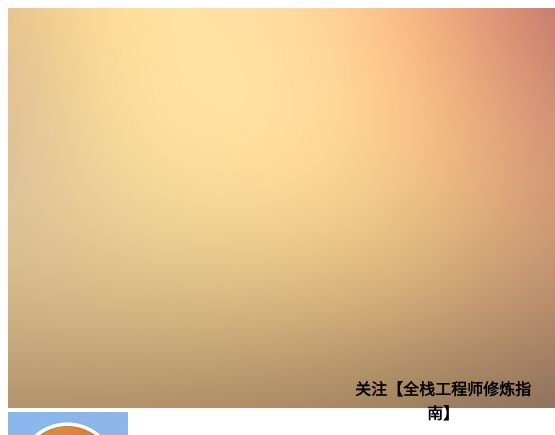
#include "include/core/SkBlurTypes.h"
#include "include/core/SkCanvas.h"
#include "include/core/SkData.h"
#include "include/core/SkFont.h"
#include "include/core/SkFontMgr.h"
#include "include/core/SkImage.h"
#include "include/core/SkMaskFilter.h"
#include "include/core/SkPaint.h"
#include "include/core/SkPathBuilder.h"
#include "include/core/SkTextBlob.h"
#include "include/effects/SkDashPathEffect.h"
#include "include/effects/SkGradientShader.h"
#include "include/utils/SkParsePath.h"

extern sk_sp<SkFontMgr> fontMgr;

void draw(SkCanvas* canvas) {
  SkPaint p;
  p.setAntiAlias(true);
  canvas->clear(SK_ColorWHITE);
  canvas->drawImageRect(SkImages::DeferredFromEncodedData(SkData::MakeFromFileName("images/1.png")), SkRect::MakeLTRB(8, 8, 555, 408), SkSamplingOptions());
  canvas->drawImageRect(SkImages::DeferredFromEncodedData(SkData::MakeFromFileName("images/2.png")), SkRect::MakeLTRB(8, 412, 128, 435), SkSamplingOptions());
  SkFont font1(fontMgr->matchFamilyStyle("Noto Sans CJK SC", SkFontStyle::Bold()), 16);
  font1.setSubpixel(true);
  p.setColor(SK_ColorBLACK);
  canvas->drawString("关注【全栈工程师修炼指", 355, 395, font1, p);
  canvas->drawString("南】", 427, 419, font1, p);
}
